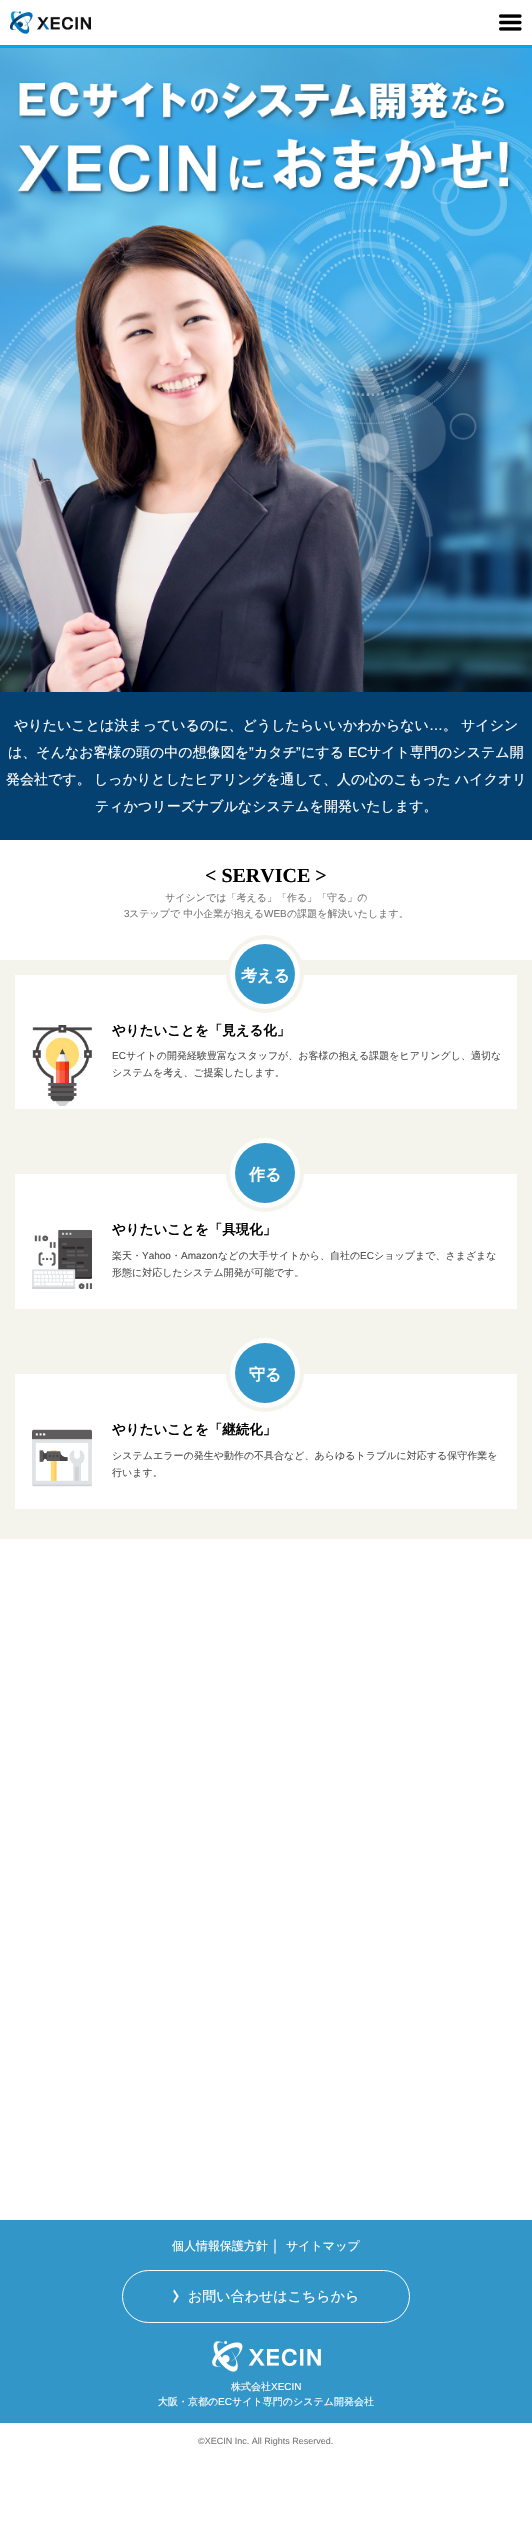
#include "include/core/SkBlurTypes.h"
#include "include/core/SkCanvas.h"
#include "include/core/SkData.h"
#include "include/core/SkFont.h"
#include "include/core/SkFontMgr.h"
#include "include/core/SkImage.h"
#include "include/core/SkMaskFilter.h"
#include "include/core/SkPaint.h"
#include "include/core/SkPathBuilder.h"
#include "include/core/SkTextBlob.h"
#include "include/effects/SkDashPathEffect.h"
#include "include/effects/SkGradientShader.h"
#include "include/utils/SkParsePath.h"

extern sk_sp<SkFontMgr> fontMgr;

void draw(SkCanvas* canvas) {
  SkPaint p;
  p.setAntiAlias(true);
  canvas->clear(SK_ColorWHITE);
  p.setColor(SkColorSetRGB(0, 167, 230));
  canvas->drawRect(SkRect::MakeLTRB(0, 45, 532, 48), p);
  canvas->drawImageRect(SkImages::DeferredFromEncodedData(SkData::MakeFromFileName("images/1.png")), SkRect::MakeLTRB(10, 11, 91, 34), SkSamplingOptions());
  canvas->drawImageRect(SkImages::DeferredFromEncodedData(SkData::MakeFromFileName("images/2.png")), SkRect::MakeLTRB(499, 14, 522, 31), SkSamplingOptions());
  canvas->drawImageRect(SkImages::DeferredFromEncodedData(SkData::MakeFromFileName("images/3.png")), SkRect::MakeLTRB(0, 48, 532, 692), SkSamplingOptions());
  p.setColor(SkColorSetRGB(5, 65, 112));
  canvas->drawRect(SkRect::MakeLTRB(0, 692, 532, 840), p);
  p.setColor(SkColorSetRGB(244, 244, 236));
  canvas->drawRect(SkRect::MakeLTRB(0, 960, 532, 1539), p);
  p.setColor(SK_ColorWHITE);
  canvas->drawRect(SkRect::MakeLTRB(15, 975, 517, 1109), p);
  canvas->drawCircle(265, 974, 37, p);
  p.setStyle(SkPaint::kStroke_Style);
  p.setStrokeWidth(4);
  p.setColor(SkColorSetRGB(244, 244, 236));
  canvas->drawCircle(265, 974, 37, p);
  p.setStyle(SkPaint::kFill_Style);
  p.setColor(SkColorSetRGB(50, 150, 200));
  canvas->drawCircle(265, 974, 30, p);
  canvas->drawImageRect(SkImages::DeferredFromEncodedData(SkData::MakeFromFileName("images/4.png")), SkRect::MakeLTRB(32, 1025, 92, 1106), SkSamplingOptions());
  p.setColor(SK_ColorWHITE);
  canvas->drawRect(SkRect::MakeLTRB(15, 1174, 517, 1309), p);
  canvas->drawCircle(265, 1173, 37, p);
  p.setStyle(SkPaint::kStroke_Style);
  p.setColor(SkColorSetRGB(244, 244, 236));
  canvas->drawCircle(265, 1173, 37, p);
  p.setStyle(SkPaint::kFill_Style);
  p.setColor(SkColorSetRGB(50, 150, 200));
  canvas->drawCircle(265, 1173, 30, p);
  canvas->drawImageRect(SkImages::DeferredFromEncodedData(SkData::MakeFromFileName("images/5.png")), SkRect::MakeLTRB(32, 1230, 92, 1289), SkSamplingOptions());
  p.setColor(SK_ColorWHITE);
  canvas->drawRect(SkRect::MakeLTRB(15, 1374, 517, 1509), p);
  canvas->drawCircle(265, 1373, 37, p);
  p.setStyle(SkPaint::kStroke_Style);
  p.setColor(SkColorSetRGB(244, 244, 236));
  canvas->drawCircle(265, 1373, 37, p);
  p.setStyle(SkPaint::kFill_Style);
  p.setColor(SkColorSetRGB(50, 150, 200));
  canvas->drawCircle(265, 1373, 30, p);
  canvas->drawImageRect(SkImages::DeferredFromEncodedData(SkData::MakeFromFileName("images/6.png")), SkRect::MakeLTRB(32, 1429, 92, 1487), SkSamplingOptions());
  canvas->drawRect(SkRect::MakeLTRB(0, 2220, 532, 2423), p);
  p.setStyle(SkPaint::kStroke_Style);
  p.setStrokeWidth(1);
  p.setColor(SK_ColorWHITE);
  canvas->drawRoundRect(SkRect::MakeLTRB(122.5f, 2270.5f, 409.5f, 2322.5f), 26, 26, p);
  canvas->drawImageRect(SkImages::DeferredFromEncodedData(SkData::MakeFromFileName("images/7.png")), SkRect::MakeLTRB(173, 2289, 179, 2303), SkSamplingOptions());
  canvas->drawImageRect(SkImages::DeferredFromEncodedData(SkData::MakeFromFileName("images/8.png")), SkRect::MakeLTRB(212, 2341, 321, 2372), SkSamplingOptions());
  SkFont font1(fontMgr->matchFamilyStyle("WenQuanYi Zen Hei", SkFontStyle(500, SkFontStyle::kNormal_Width, SkFontStyle::kUpright_Slant)), 14);
  font1.setSubpixel(true);
  p.setStyle(SkPaint::kFill_Style);
  canvas->drawString("やりたいことは決まっているのに、どうしたらいいかわからない", 14, 730, font1, p);
  SkFont font2(fontMgr->matchFamilyStyle("Liberation Sans", SkFontStyle::Normal()), 14);
  font2.setSubpixel(true);
  canvas->drawString("…", 429, 730, font2, p);
  canvas->drawString("。", 443, 730, font1, p);
  canvas->drawString("サイシン", 461, 730, font1, p);
  canvas->drawString("は、そんなお客様の頭の中の想像図を", 8, 757, font1, p);
  canvas->drawString("”", 249, 757, font2, p);
  canvas->drawString("カタチ", 254, 757, font1, p);
  canvas->drawString("”", 296, 757, font2, p);
  canvas->drawString("にする", 301, 757, font1, p);
  canvas->drawString("EC", 348, 757, font2, p);
  canvas->drawString("サイト専門のシステム開", 367, 757, font1, p);
  canvas->drawString("発会社です。", 6, 784, font1, p);
  canvas->drawString("しっかりとしたヒアリングを通して、人の心のこもった", 94, 784, font1, p);
  canvas->drawString("ハイクオリ", 455, 784, font1, p);
  canvas->drawString("ティかつリーズナブルなシステムを開発いたします。", 95, 811, font1, p);
  SkFont font3(fontMgr->matchFamilyStyle("Liberation Serif", SkFontStyle::Bold()), 20);
  font3.setSubpixel(true);
  p.setColor(SK_ColorBLACK);
  canvas->drawString("< SERVICE >", 205, 882, font3, p);
  SkFont font4(fontMgr->matchFamilyStyle("WenQuanYi Zen Hei", SkFontStyle(500, SkFontStyle::kNormal_Width, SkFontStyle::kUpright_Slant)), 10);
  font4.setSubpixel(true);
  p.setColor(SkColorSetRGB(119, 119, 119));
  canvas->drawString("サイシンでは「考える」「作る」「守る」の", 165, 901, font4, p);
  SkFont font5(fontMgr->matchFamilyStyle("Liberation Sans", SkFontStyle::Normal()), 10);
  font5.setSubpixel(true);
  canvas->drawString("3", 124, 917, font5, p);
  canvas->drawString("ステップで 中小企業が抱える", 129, 917, font4, p);
  canvas->drawString("WEB", 264, 917, font5, p);
  canvas->drawString("の課題を解決いたします。", 287, 917, font4, p);
  SkFont font6(fontMgr->matchFamilyStyle("WenQuanYi Zen Hei", SkFontStyle::Bold()), 16);
  font6.setSubpixel(true);
  p.setColor(SK_ColorWHITE);
  canvas->drawString("考える", 241, 981, font6, p);
  SkFont font7(fontMgr->matchFamilyStyle("WenQuanYi Zen Hei", SkFontStyle::Bold()), 13.5f);
  font7.setSubpixel(true);
  p.setColor(SK_ColorBLACK);
  canvas->drawString("やりたいことを「見える化」", 112, 1035, font7, p);
  p.setColor(SkColorSetRGB(77, 77, 77));
  canvas->drawString("EC", 112, 1059, font5, p);
  canvas->drawString("サイトの開発経験豊富なスタッフが、お客様の抱える課題をヒアリングし、適切な", 126, 1059, font4, p);
  canvas->drawString("システムを考え、ご提案したします。", 112, 1076, font4, p);
  p.setColor(SK_ColorWHITE);
  canvas->drawString("作る", 249, 1180, font6, p);
  p.setColor(SK_ColorBLACK);
  canvas->drawString("やりたいことを「具現化」", 112, 1234, font7, p);
  p.setColor(SkColorSetRGB(77, 77, 77));
  canvas->drawString("楽天・", 112, 1259, font4, p);
  canvas->drawString("Yahoo", 142, 1259, font5, p);
  canvas->drawString("・", 171, 1259, font4, p);
  canvas->drawString("Amazon", 181, 1259, font5, p);
  canvas->drawString("などの大手サイトから、自社の", 218, 1259, font4, p);
  canvas->drawString("EC", 360, 1259, font5, p);
  canvas->drawString("ショップまで、さまざまな", 374, 1259, font4, p);
  canvas->drawString("形態に対応したシステム開発が可能です。", 112, 1276, font4, p);
  p.setColor(SK_ColorWHITE);
  canvas->drawString("守る", 249, 1380, font6, p);
  p.setColor(SK_ColorBLACK);
  canvas->drawString("やりたいことを「継続化」", 112, 1434, font7, p);
  p.setColor(SkColorSetRGB(77, 77, 77));
  canvas->drawString("システムエラーの発生や動作の不具合など、あらゆるトラブルに対応する保守作業を", 112, 1459, font4, p);
  canvas->drawString("行います。", 112, 1476, font4, p);
  SkFont font8(fontMgr->matchFamilyStyle("WenQuanYi Zen Hei", SkFontStyle(500, SkFontStyle::kNormal_Width, SkFontStyle::kUpright_Slant)), 12);
  font8.setSubpixel(true);
  p.setColor(SK_ColorWHITE);
  canvas->drawString("個人情報保護方針", 172, 2250, font8, p);
  canvas->drawString("｜", 268, 2250, font1, p);
  canvas->drawString("サイトマップ", 286, 2250, font8, p);
  canvas->drawString("お問い合わせはこちらから", 188, 2301, font1, p);
  canvas->drawString("株式会社", 231, 2390, font4, p);
  canvas->drawString("XECIN", 271, 2390, font5, p);
  canvas->drawString("大阪・京都の", 158, 2405, font4, p);
  canvas->drawString("EC", 218, 2405, font5, p);
  canvas->drawString("サイト専門のシステム開発会社", 232, 2405, font4, p);
  SkFont font9(fontMgr->matchFamilyStyle("Liberation Sans", SkFontStyle::Normal()), 9);
  font9.setSubpixel(true);
  p.setColor(SkColorSetRGB(119, 119, 119));
  canvas->drawString("©XECIN Inc. All Rights Reserved.", 198, 2444, font9, p);
}
